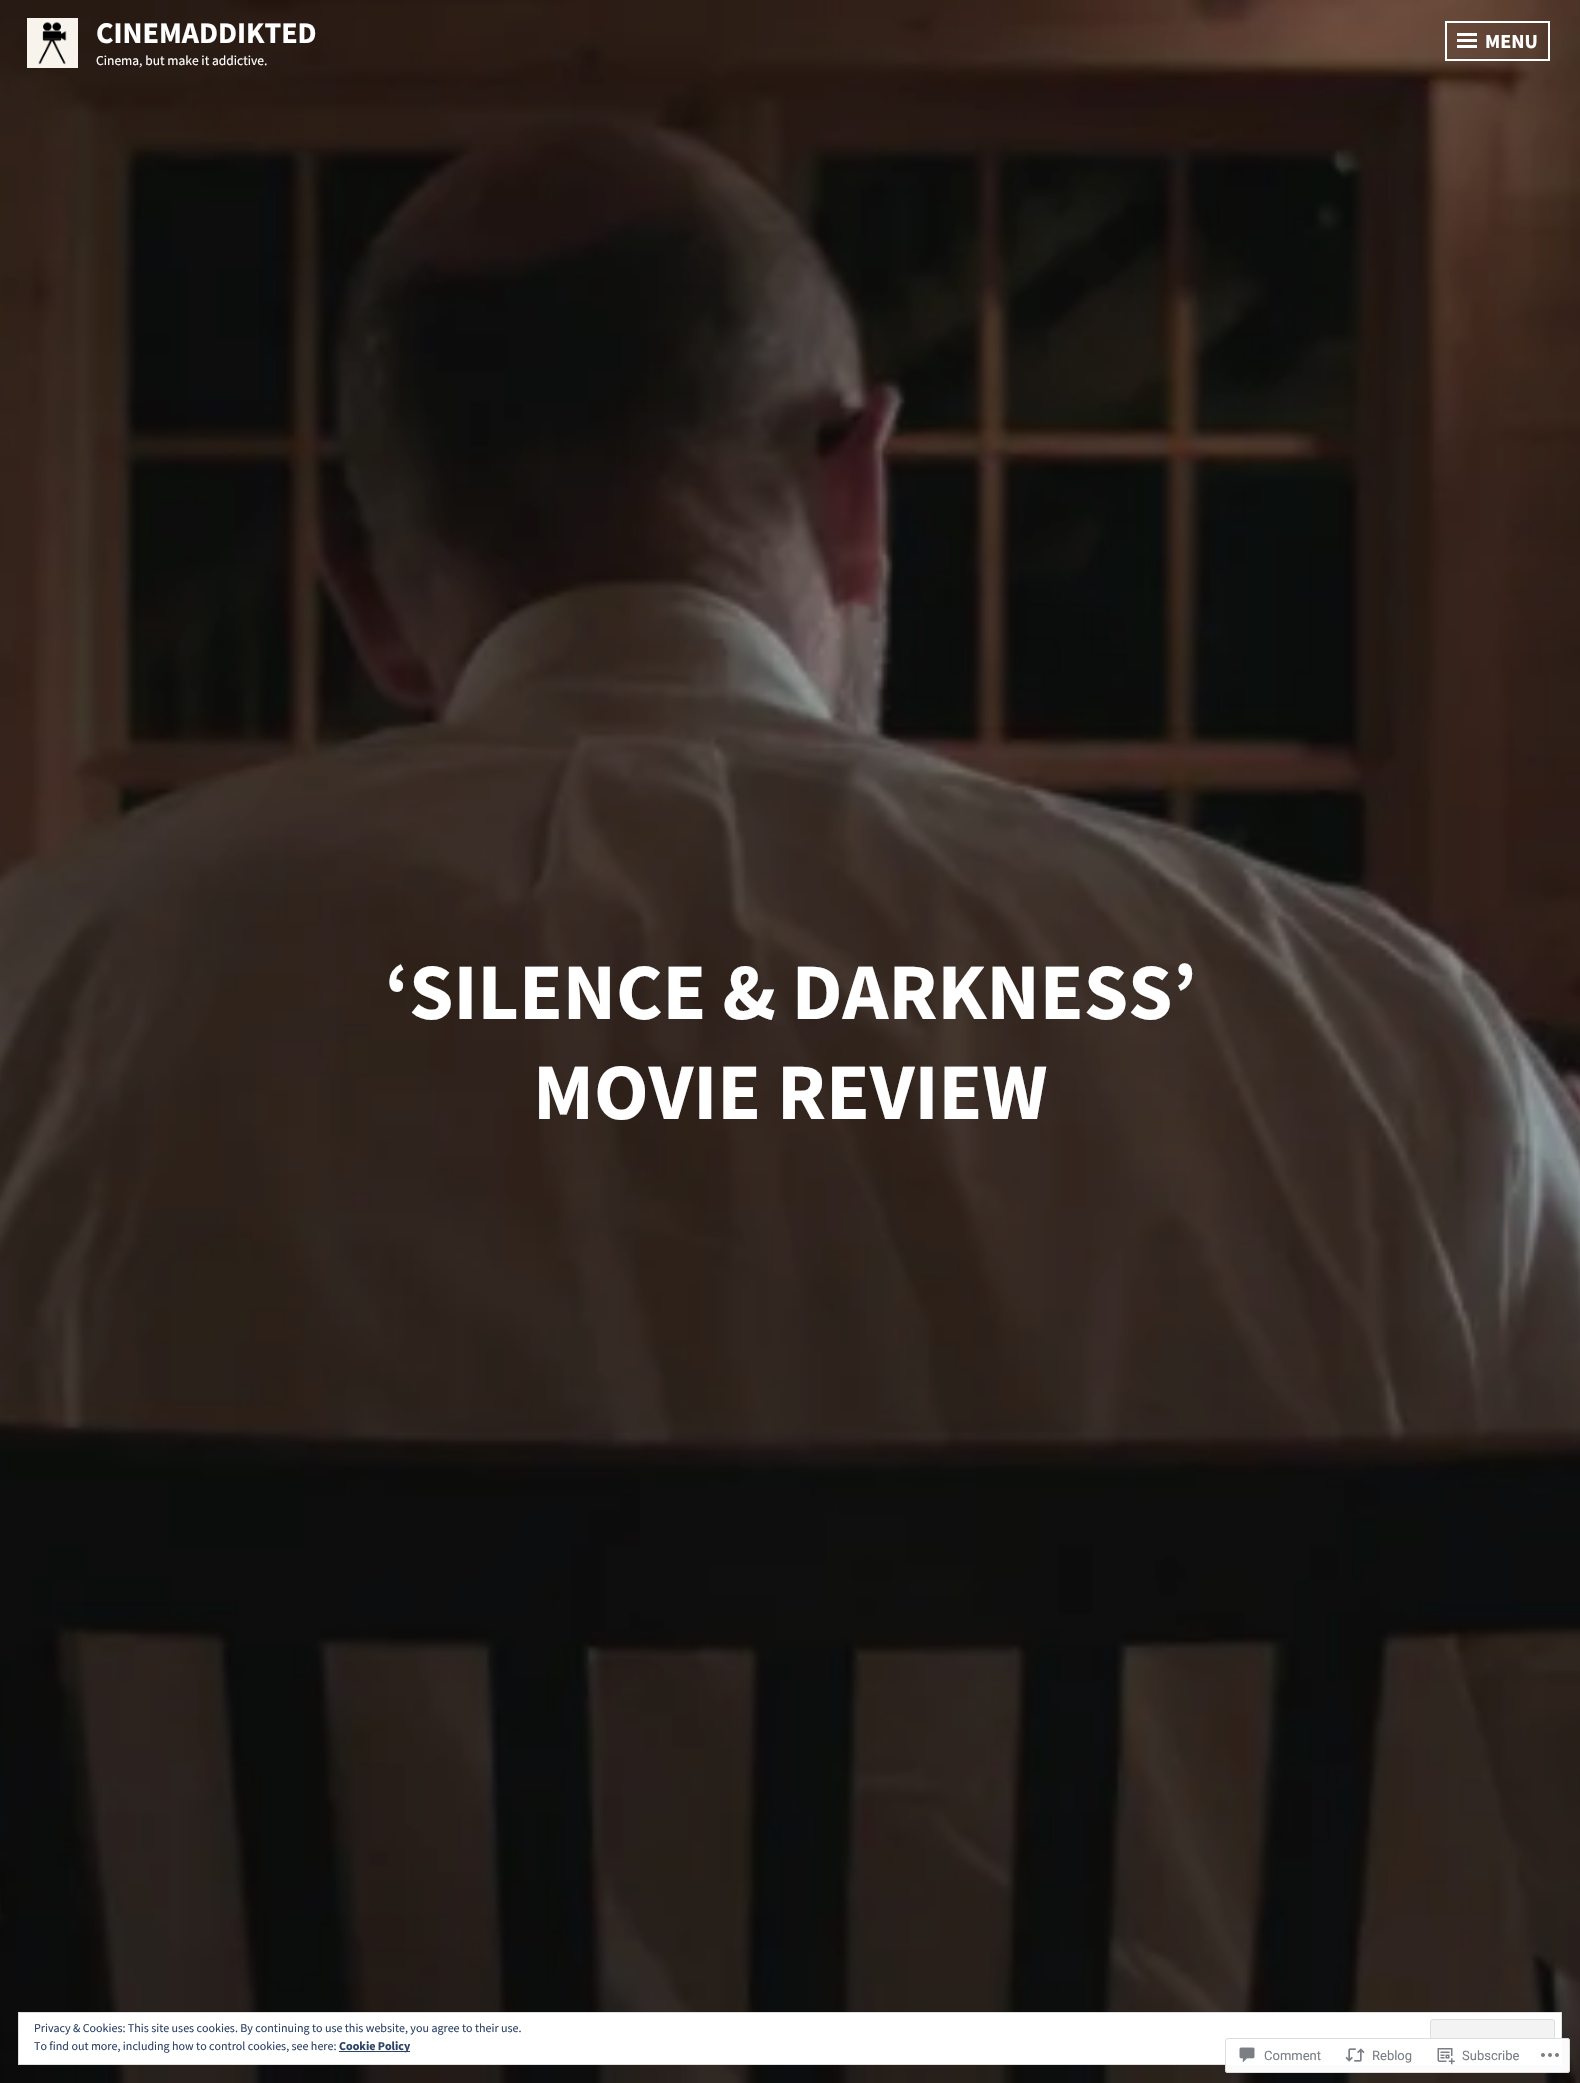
#include "include/core/SkBlurTypes.h"
#include "include/core/SkCanvas.h"
#include "include/core/SkData.h"
#include "include/core/SkFont.h"
#include "include/core/SkFontMgr.h"
#include "include/core/SkImage.h"
#include "include/core/SkMaskFilter.h"
#include "include/core/SkPaint.h"
#include "include/core/SkPathBuilder.h"
#include "include/core/SkTextBlob.h"
#include "include/effects/SkDashPathEffect.h"
#include "include/effects/SkGradientShader.h"
#include "include/utils/SkParsePath.h"

extern sk_sp<SkFontMgr> fontMgr;

void draw(SkCanvas* canvas) {
  SkPaint p;
  p.setAntiAlias(true);
  canvas->clear(SK_ColorWHITE);
  canvas->drawImageRect(SkImages::DeferredFromEncodedData(SkData::MakeFromFileName("images/2.png")), SkRect::MakeLTRB(0, 0, 1580, 2083), SkSamplingOptions());
  canvas->drawImageRect(SkImages::DeferredFromEncodedData(SkData::MakeFromFileName("images/1.png")), SkRect::MakeLTRB(27, 18, 78, 68), SkSamplingOptions());
  p.setStyle(SkPaint::kStroke_Style);
  p.setStrokeWidth(2);
  p.setColor(SK_ColorWHITE);
  canvas->drawRect(SkRect::MakeLTRB(1446, 22, 1549, 60), p);
  p.setStyle(SkPaint::kFill_Style);
  canvas->drawRect(SkRect::MakeLTRB(1457, 39, 1477, 42), p);
  canvas->drawRect(SkRect::MakeLTRB(1457, 33, 1477, 36), p);
  canvas->drawRect(SkRect::MakeLTRB(1457, 45, 1477, 48), p);
  canvas->drawRect(SkRect::MakeLTRB(18.5f, 2012.5f, 1561.5f, 2064.5f), p);
  p.setStyle(SkPaint::kStroke_Style);
  p.setStrokeWidth(1);
  p.setColor(SkColorSetRGB(222, 222, 222));
  canvas->drawRect(SkRect::MakeLTRB(18.5f, 2012.5f, 1561.5f, 2064.5f), p);
  p.setStyle(SkPaint::kFill_Style);
  p.setColor(SkColorSetRGB(243, 243, 243));
  canvas->drawRoundRect(SkRect::MakeLTRB(1430.5f, 2019.5f, 1554.5f, 2057.5f), 2.5f, 2.5f, p);
  p.setStyle(SkPaint::kStroke_Style);
  p.setColor(SkColorSetRGB(222, 222, 222));
  canvas->drawRoundRect(SkRect::MakeLTRB(1430.5f, 2019.5f, 1554.5f, 2057.5f), 2.5f, 2.5f, p);
  p.setStyle(SkPaint::kFill_Style);
  p.setColor(SkColorSetRGB(46, 68, 103));
  canvas->drawRect(SkRect::MakeLTRB(339, 2051, 410, 2052), p);
  p.setColor(SkColorSetARGB(250, 255, 255, 255));
  canvas->drawRoundRect(SkRect::MakeLTRB(1225, 2038, 1570, 2073), 3, 3, p);
  p.setStyle(SkPaint::kStroke_Style);
  p.setColor(SkColorSetARGB(250, 220, 220, 222));
  canvas->drawRoundRect(SkRect::MakeLTRB(1225.5f, 2038.5f, 1569.5f, 2072.5f), 2.5f, 2.5f, p);
  canvas->drawImageRect(SkImages::DeferredFromEncodedData(SkData::MakeFromFileName("images/3.png")), SkRect::MakeLTRB(1239, 2047, 1255, 2063), SkSamplingOptions());
  canvas->drawImageRect(SkImages::DeferredFromEncodedData(SkData::MakeFromFileName("images/4.png")), SkRect::MakeLTRB(1345, 2048, 1365, 2062), SkSamplingOptions());
  canvas->drawImageRect(SkImages::DeferredFromEncodedData(SkData::MakeFromFileName("images/5.png")), SkRect::MakeLTRB(1437, 2048, 1455, 2065), SkSamplingOptions());
  canvas->drawImageRect(SkImages::DeferredFromEncodedData(SkData::MakeFromFileName("images/6.png")), SkRect::MakeLTRB(1541, 2053, 1559, 2057), SkSamplingOptions());
  SkFont font1(fontMgr->matchFamilyStyle("Source Sans Pro", SkFontStyle::Bold()), 30);
  font1.setSubpixel(true);
  p.setStyle(SkPaint::kFill_Style);
  p.setColor(SK_ColorWHITE);
  canvas->drawString("CINEMADDIKTED", 96, 43, font1, p);
  SkFont font2(fontMgr->matchFamilyStyle("Source Sans Pro", SkFontStyle::Normal()), 13.5f);
  font2.setSubpixel(true);
  canvas->drawString("Cinema, but make it addictive.", 96, 65, font2, p);
  SkFont font3(fontMgr->matchFamilyStyle("Source Sans Pro", SkFontStyle::Bold()), 20);
  font3.setSubpixel(true);
  canvas->drawString("MENU", 1485, 48, font3, p);
  SkFont font4(fontMgr->matchFamilyStyle("Source Sans Pro", SkFontStyle::Bold()), 80);
  font4.setSubpixel(true);
  canvas->drawString("‘SILENCE & DARKNESS’", 385, 1019, font4, p);
  canvas->drawString("MOVIE REVIEW", 533, 1119, font4, p);
  SkFont font5(fontMgr->matchFamilyStyle("Source Sans Pro", SkFontStyle::Normal()), 12);
  font5.setSubpixel(true);
  p.setColor(SkColorSetRGB(46, 68, 103));
  canvas->drawString("Privacy & Cookies: This site uses cookies. By continuing to use this website, you agree to their use.", 34, 2032, font5, p);
  canvas->drawString("To find out more, including how to control cookies, see here:", 34, 2050, font5, p);
  SkFont font6(fontMgr->matchFamilyStyle("Source Sans Pro", SkFontStyle::Bold()), 12);
  font6.setSubpixel(true);
  canvas->drawString("Cookie Policy", 339, 2050, font6, p);
  SkFont font7(fontMgr->matchFamilyStyle("Roboto", SkFontStyle::Normal()), 13);
  font7.setSubpixel(true);
  p.setColor(SkColorSetRGB(123, 127, 133));
  canvas->drawString("Comment", 1264, 2060, font7, p);
  canvas->drawString("Reblog", 1372, 2060, font7, p);
  canvas->drawString("Subscribe", 1462, 2060, font7, p);
}
